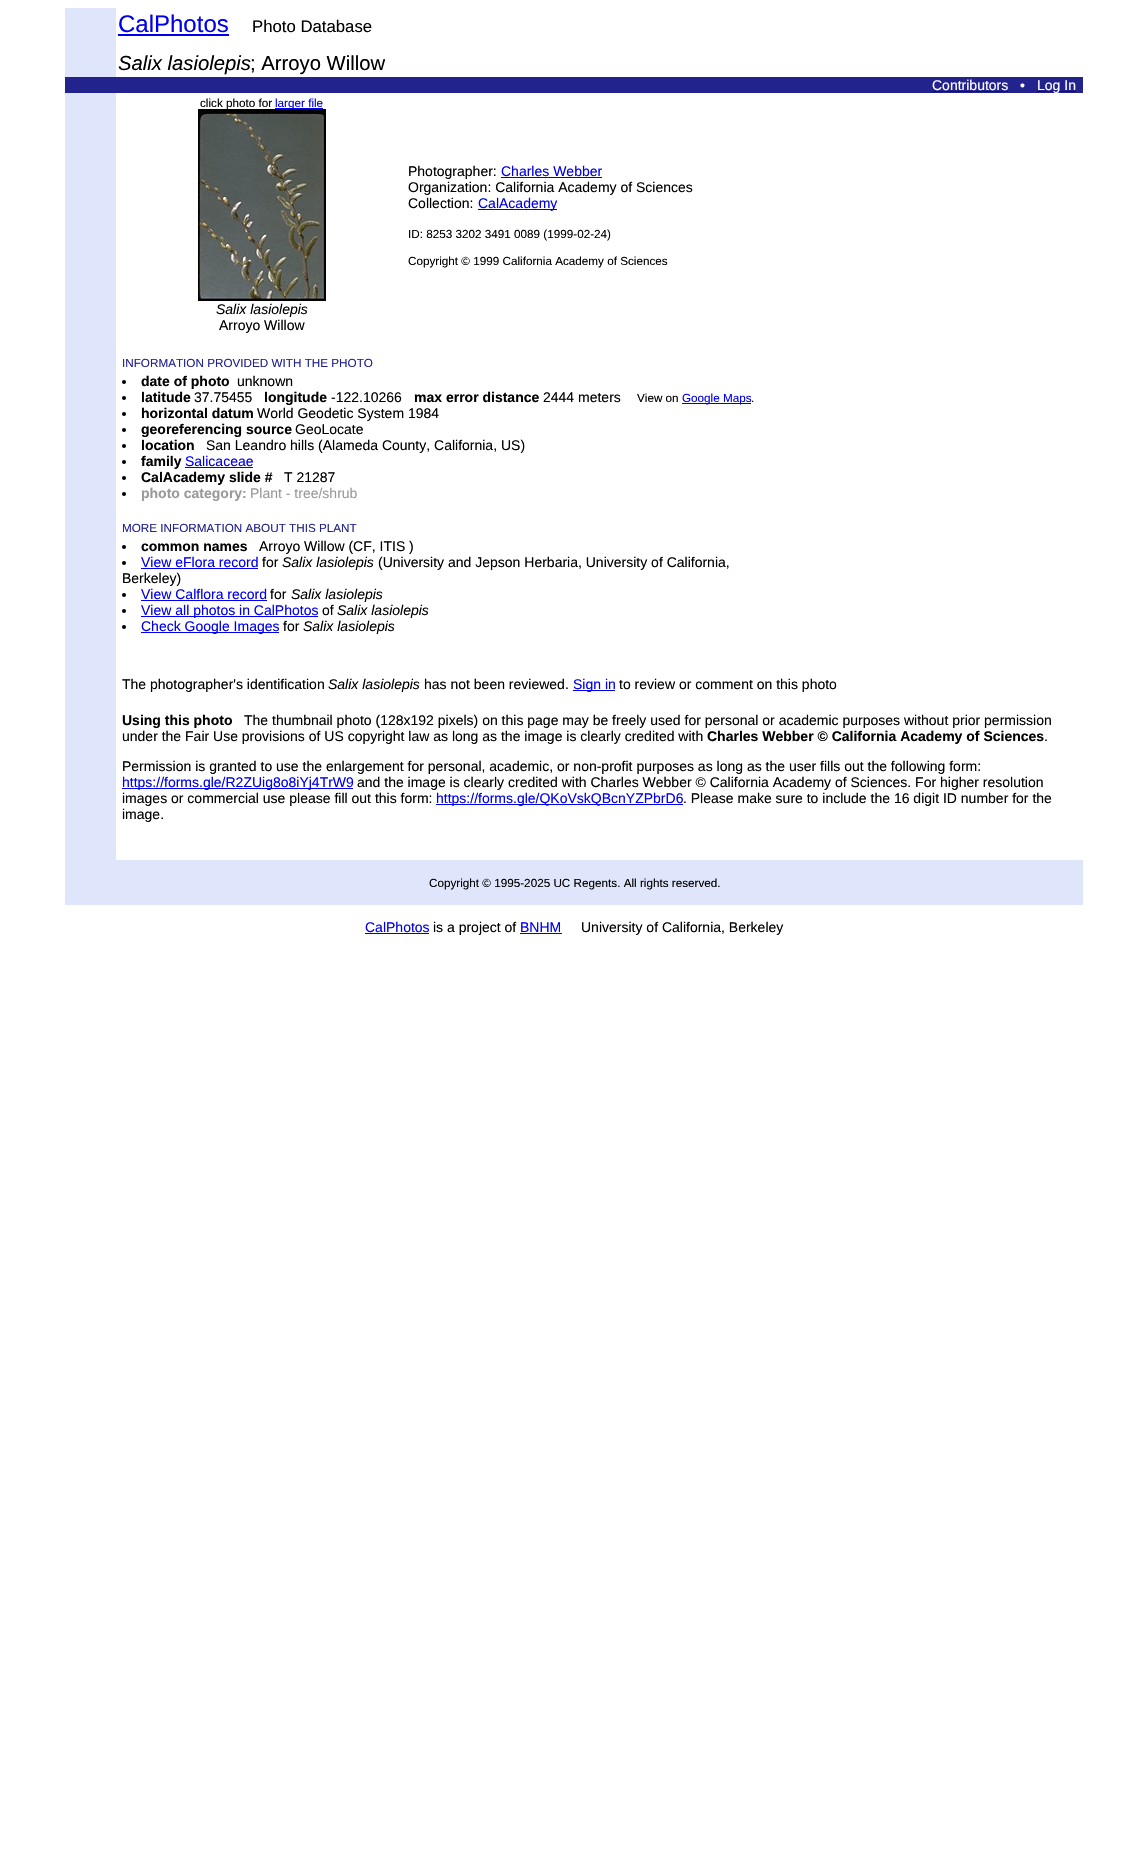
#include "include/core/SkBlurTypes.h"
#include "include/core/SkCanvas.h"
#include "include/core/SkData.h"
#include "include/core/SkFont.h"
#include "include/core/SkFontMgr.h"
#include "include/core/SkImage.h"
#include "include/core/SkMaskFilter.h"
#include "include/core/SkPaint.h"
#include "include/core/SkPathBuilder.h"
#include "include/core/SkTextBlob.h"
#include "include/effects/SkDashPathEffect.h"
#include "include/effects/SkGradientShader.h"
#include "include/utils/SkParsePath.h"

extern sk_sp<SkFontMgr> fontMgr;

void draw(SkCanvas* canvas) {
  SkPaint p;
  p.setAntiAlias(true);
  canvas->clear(SK_ColorWHITE);
  p.setColor(SkColorSetRGB(223, 229, 250));
  canvas->drawRect(SkRect::MakeLTRB(65, 8, 116, 77), p);
  p.setColor(SkColorSetRGB(0, 0, 238));
  canvas->drawRect(SkRect::MakeLTRB(118, 34, 229, 36), p);
  p.setColor(SkColorSetRGB(35, 35, 142));
  canvas->drawRect(SkRect::MakeLTRB(65, 77, 1083, 93), p);
  p.setColor(SkColorSetRGB(0, 0, 238));
  canvas->drawRect(SkRect::MakeLTRB(932, 91, 1008, 92), p);
  canvas->drawRect(SkRect::MakeLTRB(1037, 91, 1076, 92), p);
  p.setColor(SkColorSetRGB(223, 229, 250));
  canvas->drawRect(SkRect::MakeLTRB(65, 93, 116, 860), p);
  p.setColor(SkColorSetRGB(0, 0, 238));
  canvas->drawRect(SkRect::MakeLTRB(275, 108, 323, 109), p);
  canvas->drawRect(SkRect::MakeLTRB(501, 177, 602, 178), p);
  canvas->drawRect(SkRect::MakeLTRB(478, 209, 557, 210), p);
  p.setColor(SK_ColorBLACK);
  canvas->drawCircle(124, 382, 2, p);
  canvas->drawCircle(124, 398, 2, p);
  p.setColor(SkColorSetRGB(0, 0, 238));
  canvas->drawRect(SkRect::MakeLTRB(682, 403, 751, 404), p);
  p.setColor(SK_ColorBLACK);
  canvas->drawCircle(124, 414, 2, p);
  canvas->drawCircle(124, 430, 2, p);
  canvas->drawCircle(124, 446, 2, p);
  canvas->drawCircle(124, 462, 2, p);
  p.setColor(SkColorSetRGB(0, 0, 238));
  canvas->drawRect(SkRect::MakeLTRB(185, 467, 253, 468), p);
  p.setColor(SK_ColorBLACK);
  canvas->drawCircle(124, 478, 2, p);
  canvas->drawCircle(124, 494, 2, p);
  canvas->drawCircle(124, 547, 2, p);
  canvas->drawCircle(124, 563, 2, p);
  p.setColor(SkColorSetRGB(0, 0, 238));
  canvas->drawRect(SkRect::MakeLTRB(141, 568, 258, 569), p);
  p.setColor(SK_ColorBLACK);
  canvas->drawCircle(124, 595, 2, p);
  p.setColor(SkColorSetRGB(0, 0, 238));
  canvas->drawRect(SkRect::MakeLTRB(141, 600, 267, 601), p);
  p.setColor(SK_ColorBLACK);
  canvas->drawCircle(124, 611, 2, p);
  p.setColor(SkColorSetRGB(0, 0, 238));
  canvas->drawRect(SkRect::MakeLTRB(141, 616, 318, 617), p);
  p.setColor(SK_ColorBLACK);
  canvas->drawCircle(124, 627, 2, p);
  p.setColor(SkColorSetRGB(0, 0, 238));
  canvas->drawRect(SkRect::MakeLTRB(141, 632, 279, 633), p);
  canvas->drawRect(SkRect::MakeLTRB(573, 690, 615, 691), p);
  canvas->drawRect(SkRect::MakeLTRB(122, 788, 353, 789), p);
  canvas->drawRect(SkRect::MakeLTRB(436, 804, 683, 805), p);
  p.setColor(SkColorSetRGB(223, 229, 250));
  canvas->drawRect(SkRect::MakeLTRB(65, 860, 1083, 905), p);
  p.setColor(SkColorSetRGB(0, 0, 238));
  canvas->drawRect(SkRect::MakeLTRB(365, 933, 429, 934), p);
  canvas->drawRect(SkRect::MakeLTRB(520, 933, 562, 934), p);
  SkFont font1(fontMgr->matchFamilyStyle("Liberation Sans", SkFontStyle::Normal()), 24);
  font1.setSubpixel(true);
  canvas->drawString("CalPhotos", 118, 32, font1, p);
  SkFont font2(fontMgr->matchFamilyStyle("Liberation Sans", SkFontStyle::Normal()), 16.75f);
  font2.setSubpixel(true);
  p.setColor(SK_ColorBLACK);
  canvas->drawString("Photo Database", 252, 32, font2, p);
  SkFont font3(fontMgr->matchFamilyStyle("Liberation Sans", SkFontStyle::Italic()), 20.25f);
  font3.setSubpixel(true);
  canvas->drawString("Salix lasiolepis", 118, 70, font3, p);
  SkFont font4(fontMgr->matchFamilyStyle("Liberation Sans", SkFontStyle::Normal()), 20.25f);
  font4.setSubpixel(true);
  canvas->drawString("; Arroyo Willow", 250, 70, font4, p);
  SkFont font5(fontMgr->matchFamilyStyle("Liberation Sans", SkFontStyle::Normal()), 14);
  font5.setSubpixel(true);
  p.setColor(SK_ColorWHITE);
  canvas->drawString("Contributors", 932, 90, font5, p);
  canvas->drawString("•", 1020, 90, font5, p);
  canvas->drawString("Log In", 1037, 90, font5, p);
  SkFont font6(fontMgr->matchFamilyStyle("Liberation Sans", SkFontStyle::Normal()), 11.7f);
  font6.setSubpixel(true);
  p.setColor(SK_ColorBLACK);
  canvas->drawString("click photo for", 200, 107, font6, p);
  p.setColor(SkColorSetRGB(0, 0, 238));
  canvas->drawString("larger file", 275, 107, font6, p);
  canvas->drawImageRect(SkImages::DeferredFromEncodedData(SkData::MakeFromFileName("images/1.png")), SkRect::MakeLTRB(198, 109, 326, 301), SkSamplingOptions());
  SkFont font7(fontMgr->matchFamilyStyle("Liberation Sans", SkFontStyle::Italic()), 14);
  font7.setSubpixel(true);
  p.setColor(SK_ColorBLACK);
  canvas->drawString("Salix lasiolepis", 216, 314, font7, p);
  canvas->drawString("Arroyo Willow", 219, 330, font5, p);
  canvas->drawString("Photographer:", 408, 176, font5, p);
  p.setColor(SkColorSetRGB(0, 0, 238));
  canvas->drawString("Charles Webber", 501, 176, font5, p);
  p.setColor(SK_ColorBLACK);
  canvas->drawString("Organization: California Academy of Sciences", 408, 192, font5, p);
  canvas->drawString("Collection:", 408, 208, font5, p);
  p.setColor(SkColorSetRGB(0, 0, 238));
  canvas->drawString("CalAcademy", 478, 208, font5, p);
  p.setColor(SK_ColorBLACK);
  canvas->drawString("ID: 8253 3202 3491 0089 (1999-02-24)", 408, 238, font6, p);
  canvas->drawString("Copyright © 1999 California Academy of Sciences", 408, 265, font6, p);
  p.setColor(SkColorSetRGB(35, 35, 142));
  canvas->drawString("INFORMATION PROVIDED WITH THE PHOTO", 122, 367, font6, p);
  SkFont font8(fontMgr->matchFamilyStyle("Liberation Sans", SkFontStyle::Bold()), 14);
  font8.setSubpixel(true);
  p.setColor(SK_ColorBLACK);
  canvas->drawString("date of photo", 141, 386, font8, p);
  canvas->drawString("unknown", 237, 386, font5, p);
  canvas->drawString("latitude", 141, 402, font8, p);
  canvas->drawString("37.75455", 194, 402, font5, p);
  canvas->drawString("longitude", 264, 402, font8, p);
  canvas->drawString("-122.10266", 331, 402, font5, p);
  canvas->drawString("max error distance", 414, 402, font8, p);
  canvas->drawString("2444 meters", 543, 402, font5, p);
  canvas->drawString("View on", 637, 402, font6, p);
  p.setColor(SkColorSetRGB(0, 0, 238));
  canvas->drawString("Google Maps", 682, 402, font6, p);
  p.setColor(SK_ColorBLACK);
  canvas->drawString(".", 751, 402, font6, p);
  canvas->drawString("horizontal datum", 141, 418, font8, p);
  canvas->drawString("World Geodetic System 1984", 257, 418, font5, p);
  canvas->drawString("georeferencing source", 141, 434, font8, p);
  canvas->drawString("GeoLocate", 295, 434, font5, p);
  canvas->drawString("location", 141, 450, font8, p);
  canvas->drawString("San Leandro hills (Alameda County, California, US)", 206, 450, font5, p);
  canvas->drawString("family", 141, 466, font8, p);
  p.setColor(SkColorSetRGB(0, 0, 238));
  canvas->drawString("Salicaceae", 185, 466, font5, p);
  p.setColor(SK_ColorBLACK);
  canvas->drawString("CalAcademy slide #", 141, 482, font8, p);
  canvas->drawString("T 21287", 284, 482, font5, p);
  p.setColor(SkColorSetRGB(153, 153, 153));
  canvas->drawString("photo category:", 141, 498, font8, p);
  canvas->drawString("Plant - tree/shrub", 250, 498, font5, p);
  p.setColor(SkColorSetRGB(35, 35, 142));
  canvas->drawString("MORE INFORMATION ABOUT THIS PLANT", 122, 532, font6, p);
  p.setColor(SK_ColorBLACK);
  canvas->drawString("common names", 141, 551, font8, p);
  canvas->drawString("Arroyo Willow (CF, ITIS )", 259, 551, font5, p);
  p.setColor(SkColorSetRGB(0, 0, 238));
  canvas->drawString("View eFlora record", 141, 567, font5, p);
  p.setColor(SK_ColorBLACK);
  canvas->drawString("for", 262, 567, font5, p);
  canvas->drawString("Salix lasiolepis", 282, 567, font7, p);
  canvas->drawString("(University and Jepson Herbaria, University of California,", 378, 567, font5, p);
  canvas->drawString("Berkeley)", 122, 583, font5, p);
  p.setColor(SkColorSetRGB(0, 0, 238));
  canvas->drawString("View Calflora record", 141, 599, font5, p);
  p.setColor(SK_ColorBLACK);
  canvas->drawString("for", 270, 599, font5, p);
  canvas->drawString("Salix lasiolepis", 291, 599, font7, p);
  p.setColor(SkColorSetRGB(0, 0, 238));
  canvas->drawString("View all photos in CalPhotos", 141, 615, font5, p);
  p.setColor(SK_ColorBLACK);
  canvas->drawString("of", 322, 615, font5, p);
  canvas->drawString("Salix lasiolepis", 337, 615, font7, p);
  p.setColor(SkColorSetRGB(0, 0, 238));
  canvas->drawString("Check Google Images", 141, 631, font5, p);
  p.setColor(SK_ColorBLACK);
  canvas->drawString("for", 283, 631, font5, p);
  canvas->drawString("Salix lasiolepis", 303, 631, font7, p);
  canvas->drawString("The photographer's identification", 122, 689, font5, p);
  canvas->drawString("Salix lasiolepis", 328, 689, font7, p);
  canvas->drawString("has not been reviewed.", 424, 689, font5, p);
  p.setColor(SkColorSetRGB(0, 0, 238));
  canvas->drawString("Sign in", 573, 689, font5, p);
  p.setColor(SK_ColorBLACK);
  canvas->drawString("to review or comment on this photo", 619, 689, font5, p);
  canvas->drawString("Using this photo", 122, 725, font8, p);
  canvas->drawString("The thumbnail photo (128x192 pixels) on this page may be freely used for personal or academic purposes without prior permission", 244, 725, font5, p);
  canvas->drawString("under the Fair Use provisions of US copyright law as long as the image is clearly credited with", 122, 741, font5, p);
  canvas->drawString("Charles Webber © California Academy of Sciences", 707, 741, font8, p);
  canvas->drawString(".", 1044, 741, font5, p);
  canvas->drawString("Permission is granted to use the enlargement for personal, academic, or non-profit purposes as long as the user fills out the following form:", 122, 771, font5, p);
  p.setColor(SkColorSetRGB(0, 0, 238));
  canvas->drawString("https://forms.gle/R2ZUig8o8iYj4TrW9", 122, 787, font5, p);
  p.setColor(SK_ColorBLACK);
  canvas->drawString("and the image is clearly credited with Charles Webber © California Academy of Sciences. For higher resolution", 357, 787, font5, p);
  canvas->drawString("images or commercial use please fill out this form:", 122, 803, font5, p);
  p.setColor(SkColorSetRGB(0, 0, 238));
  canvas->drawString("https://forms.gle/QKoVskQBcnYZPbrD6", 436, 803, font5, p);
  p.setColor(SK_ColorBLACK);
  canvas->drawString(". Please make sure to include the 16 digit ID number for the", 683, 803, font5, p);
  canvas->drawString("image.", 122, 819, font5, p);
  canvas->drawString("Copyright © 1995-2025 UC Regents. All rights reserved.", 429, 887, font6, p);
  p.setColor(SkColorSetRGB(0, 0, 238));
  canvas->drawString("CalPhotos", 365, 932, font5, p);
  p.setColor(SK_ColorBLACK);
  canvas->drawString("is a project of", 433, 932, font5, p);
  p.setColor(SkColorSetRGB(0, 0, 238));
  canvas->drawString("BNHM", 520, 932, font5, p);
  p.setColor(SK_ColorBLACK);
  canvas->drawString("University of California, Berkeley", 581, 932, font5, p);
}
